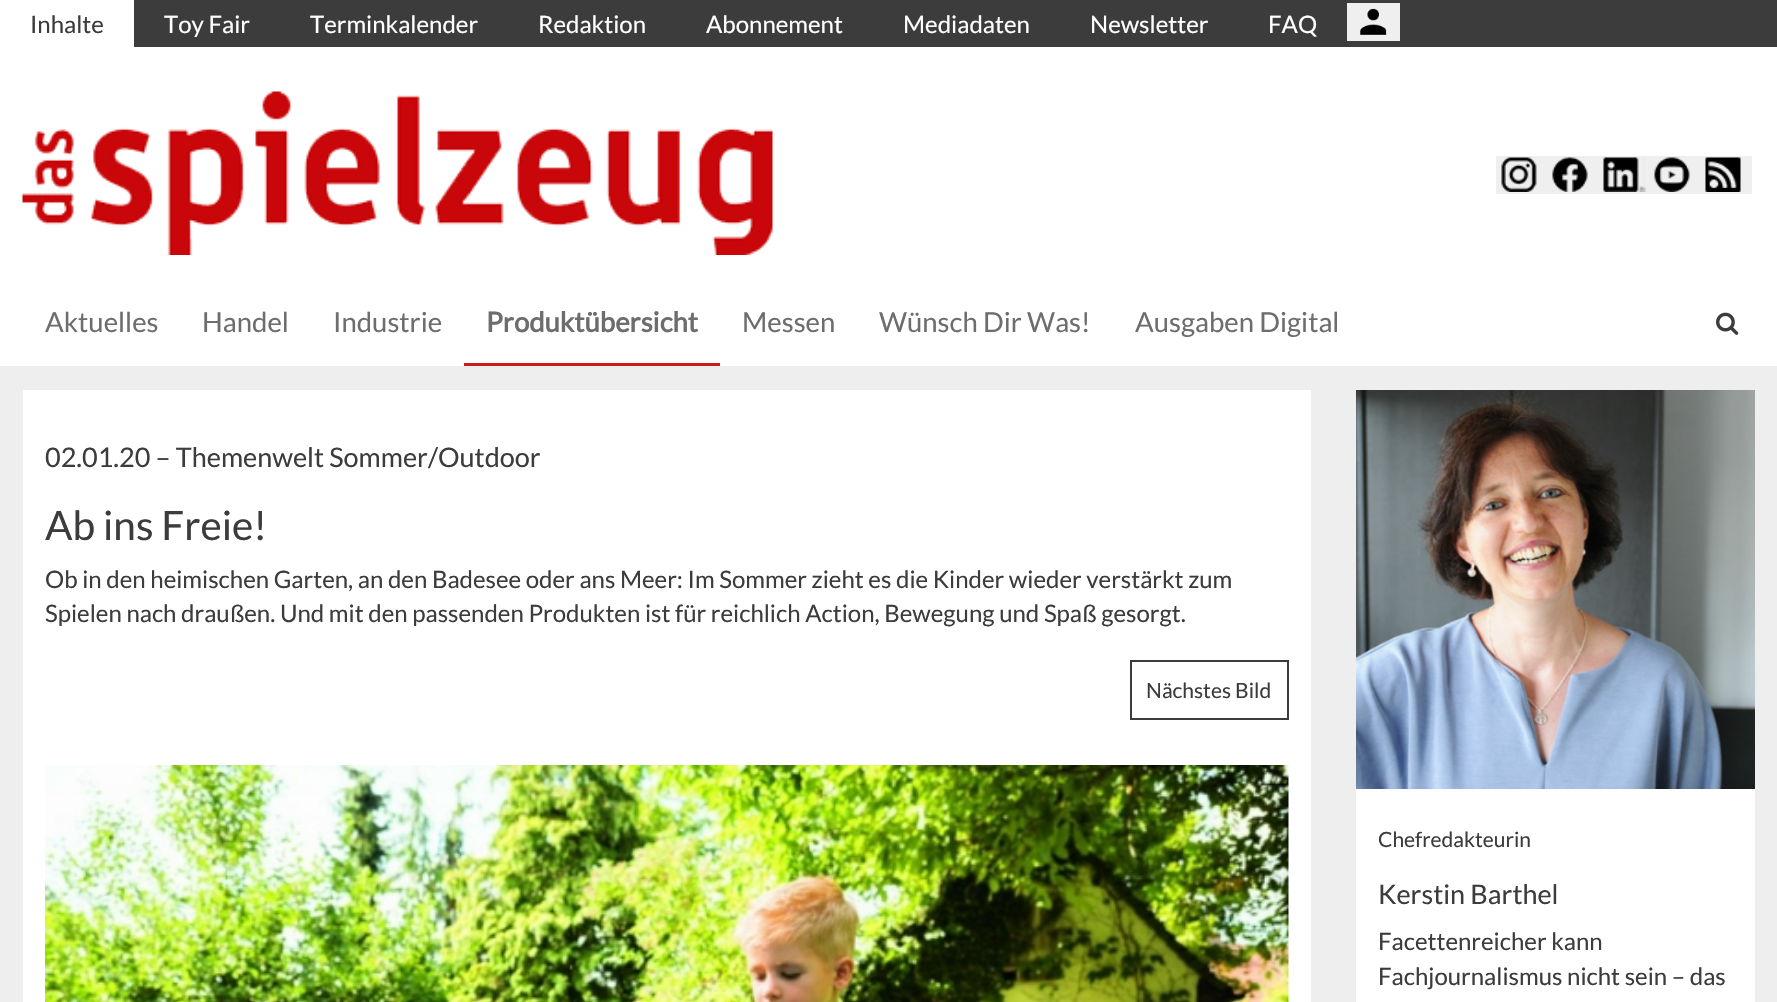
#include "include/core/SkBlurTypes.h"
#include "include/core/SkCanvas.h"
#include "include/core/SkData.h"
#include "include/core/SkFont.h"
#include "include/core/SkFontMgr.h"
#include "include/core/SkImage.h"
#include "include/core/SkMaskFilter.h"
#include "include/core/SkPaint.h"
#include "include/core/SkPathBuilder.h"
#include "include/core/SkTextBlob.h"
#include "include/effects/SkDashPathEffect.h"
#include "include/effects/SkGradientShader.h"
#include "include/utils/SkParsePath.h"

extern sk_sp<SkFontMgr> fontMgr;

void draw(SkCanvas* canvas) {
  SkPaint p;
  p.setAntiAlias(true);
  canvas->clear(SkColorSetRGB(238, 238, 238));
  p.setColor(SK_ColorWHITE);
  canvas->drawRect(SkRect::MakeLTRB(0, 47, 1777, 366), p);
  p.setColor(SkColorSetRGB(60, 60, 60));
  canvas->drawRect(SkRect::MakeLTRB(134, 0, 1777, 47), p);
  p.setColor(SK_ColorWHITE);
  canvas->drawRect(SkRect::MakeLTRB(0, 0, 134, 47), p);
  p.setColor(SkColorSetRGB(239, 239, 239));
  canvas->drawRect(SkRect::MakeLTRB(1347, 3, 1400, 41), p);
  canvas->drawImageRect(SkImages::DeferredFromEncodedData(SkData::MakeFromFileName("images/1.png")), SkRect::MakeLTRB(1360, 8, 1387, 35), SkSamplingOptions());
  canvas->drawImageRect(SkImages::DeferredFromEncodedData(SkData::MakeFromFileName("images/2.png")), SkRect::MakeLTRB(22, 91, 773, 255), SkSamplingOptions());
  canvas->drawRect(SkRect::MakeLTRB(1496, 156, 1752, 194), p);
  canvas->drawImageRect(SkImages::DeferredFromEncodedData(SkData::MakeFromFileName("images/3.png")), SkRect::MakeLTRB(1501, 157, 1537, 192), SkSamplingOptions());
  canvas->drawImageRect(SkImages::DeferredFromEncodedData(SkData::MakeFromFileName("images/4.png")), SkRect::MakeLTRB(1552, 157, 1588, 192), SkSamplingOptions());
  canvas->drawImageRect(SkImages::DeferredFromEncodedData(SkData::MakeFromFileName("images/5.png")), SkRect::MakeLTRB(1603, 157, 1646, 192), SkSamplingOptions());
  canvas->drawImageRect(SkImages::DeferredFromEncodedData(SkData::MakeFromFileName("images/6.png")), SkRect::MakeLTRB(1654, 157, 1690, 192), SkSamplingOptions());
  canvas->drawImageRect(SkImages::DeferredFromEncodedData(SkData::MakeFromFileName("images/7.png")), SkRect::MakeLTRB(1705, 157, 1741, 192), SkSamplingOptions());
  p.setColor(SkColorSetRGB(204, 24, 31));
  canvas->drawRect(SkRect::MakeLTRB(464, 363, 720, 366), p);
  canvas->drawImageRect(SkImages::DeferredFromEncodedData(SkData::MakeFromFileName("images/8.png")), SkRect::MakeLTRB(1716, 312, 1739, 335), SkSamplingOptions());
  p.setColor(SK_ColorWHITE);
  canvas->drawRect(SkRect::MakeLTRB(23, 390, 1311, 1002), p);
  p.setStyle(SkPaint::kStroke_Style);
  p.setStrokeWidth(2);
  p.setColor(SkColorSetRGB(60, 60, 60));
  canvas->drawRect(SkRect::MakeLTRB(1131, 661, 1288, 719), p);
  canvas->drawImageRect(SkImages::DeferredFromEncodedData(SkData::MakeFromFileName("images/9.png")), SkRect::MakeLTRB(45, 765, 1289, 1002), SkSamplingOptions());
  p.setStyle(SkPaint::kFill_Style);
  p.setColor(SK_ColorWHITE);
  canvas->drawRect(SkRect::MakeLTRB(1356, 789, 1755, 1002), p);
  canvas->drawImageRect(SkImages::DeferredFromEncodedData(SkData::MakeFromFileName("images/10.png")), SkRect::MakeLTRB(1356, 390, 1755, 789), SkSamplingOptions());
  SkFont font1(fontMgr->matchFamilyStyle("Lato", SkFontStyle::Normal()), 24);
  font1.setSubpixel(true);
  p.setColor(SkColorSetRGB(60, 60, 60));
  canvas->drawString("Inhalte", 30, 33, font1, p);
  p.setColor(SK_ColorWHITE);
  canvas->drawString("Toy Fair", 164, 33, font1, p);
  canvas->drawString("Terminkalender", 310, 33, font1, p);
  canvas->drawString("Redaktion", 538, 33, font1, p);
  canvas->drawString("Abonnement", 706, 33, font1, p);
  canvas->drawString("Mediadaten", 903, 33, font1, p);
  canvas->drawString("Newsletter", 1090, 33, font1, p);
  canvas->drawString("FAQ", 1268, 33, font1, p);
  SkFont font2(fontMgr->matchFamilyStyle("Lato", SkFontStyle::Normal()), 27.5f);
  font2.setSubpixel(true);
  p.setColor(SkColorSetRGB(109, 109, 109));
  canvas->drawString("Aktuelles", 45, 332, font2, p);
  canvas->drawString("Handel", 202, 332, font2, p);
  canvas->drawString("Industrie", 333, 332, font2, p);
  SkFont font3(fontMgr->matchFamilyStyle("Lato", SkFontStyle::Bold()), 27.5f);
  font3.setSubpixel(true);
  canvas->drawString("Produktübersicht", 486, 332, font3, p);
  canvas->drawString("Messen", 742, 332, font2, p);
  canvas->drawString("Wünsch Dir Was!", 879, 332, font2, p);
  canvas->drawString("Ausgaben Digital", 1135, 332, font2, p);
  SkFont font4(fontMgr->matchFamilyStyle("Lato", SkFontStyle::Normal()), 27);
  font4.setSubpixel(true);
  p.setColor(SkColorSetRGB(60, 60, 60));
  canvas->drawString("02.01.20 – Themenwelt Sommer/Outdoor", 45, 467, font4, p);
  SkFont font5(fontMgr->matchFamilyStyle("Lato", SkFontStyle::Normal()), 40.5f);
  font5.setSubpixel(true);
  canvas->drawString("Ab ins Freie!", 45, 540, font5, p);
  canvas->drawString("Ob in den heimischen Garten, an den Badesee oder ans Meer: Im Sommer zieht es die Kinder wieder verstärkt zum", 45, 588, font1, p);
  canvas->drawString("Spielen nach draußen. Und mit den passenden Produkten ist für reichlich Action, Bewegung und Spaß gesorgt.", 45, 622, font1, p);
  SkFont font6(fontMgr->matchFamilyStyle("Lato", SkFontStyle::Normal()), 21);
  font6.setSubpixel(true);
  canvas->drawString("Nächstes Bild", 1146, 698, font6, p);
  canvas->drawString("Chefredakteurin", 1378, 847, font6, p);
  canvas->drawString("Kerstin Barthel", 1378, 904, font4, p);
  canvas->drawString("Facettenreicher kann", 1378, 950, font1, p);
  canvas->drawString("Fachjournalismus nicht sein – das", 1378, 985, font1, p);
}
